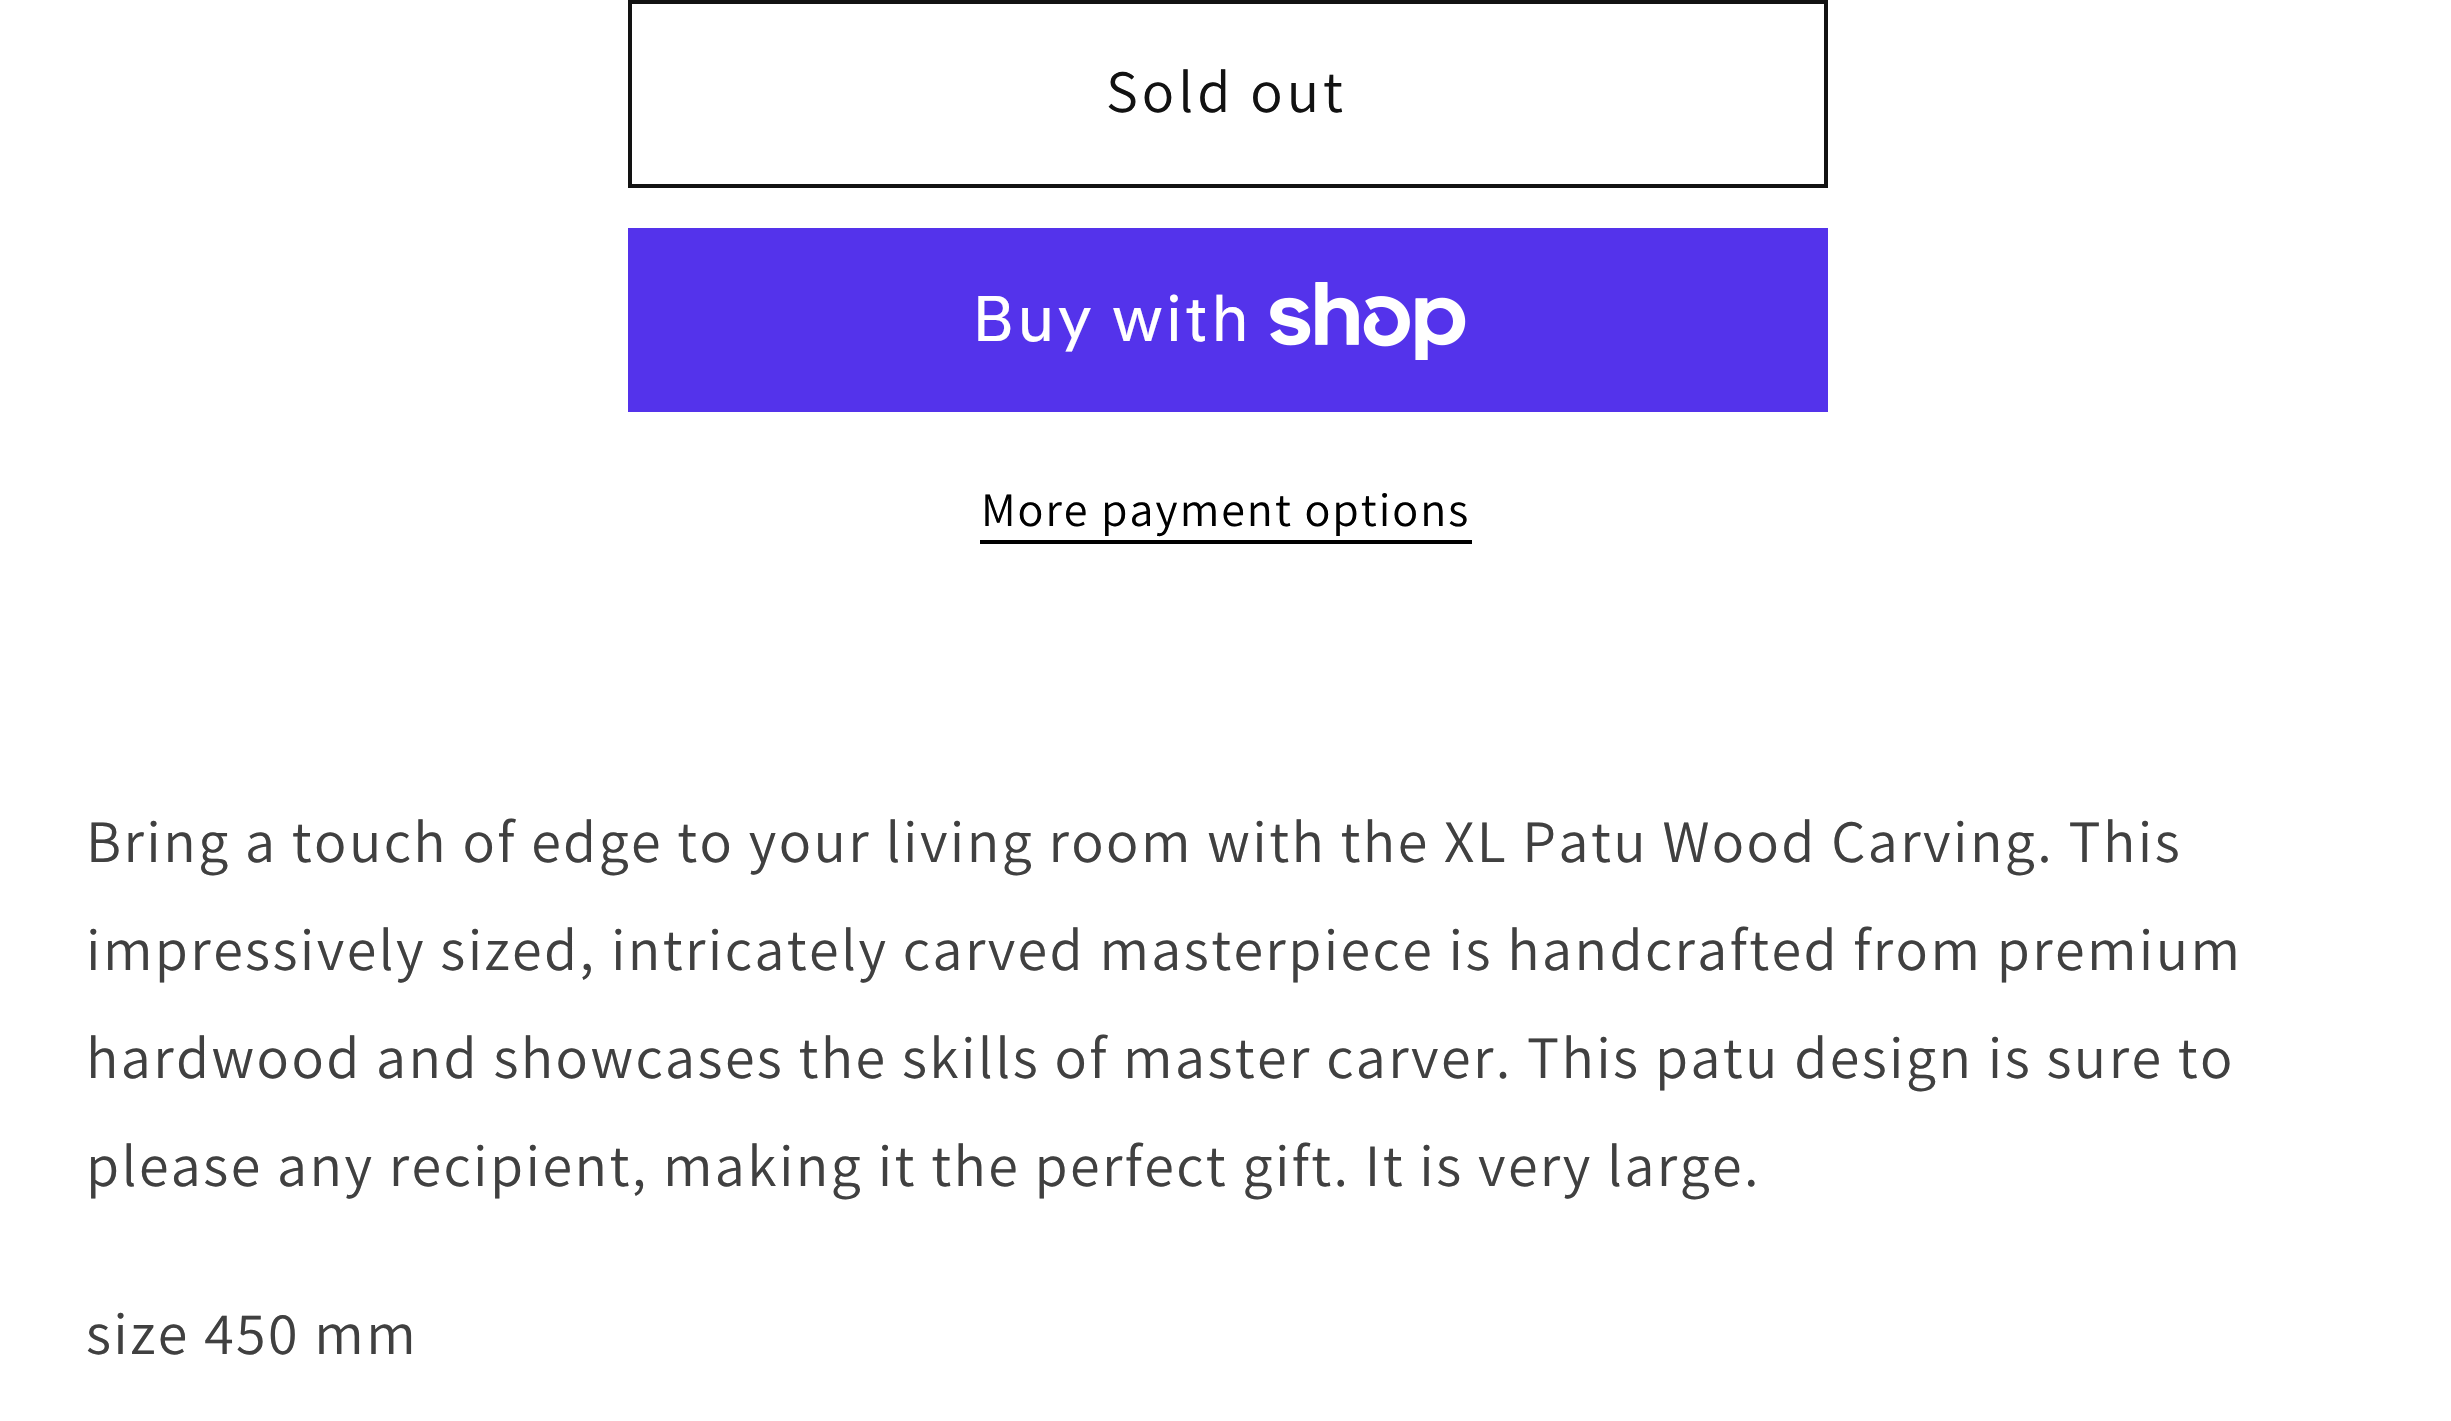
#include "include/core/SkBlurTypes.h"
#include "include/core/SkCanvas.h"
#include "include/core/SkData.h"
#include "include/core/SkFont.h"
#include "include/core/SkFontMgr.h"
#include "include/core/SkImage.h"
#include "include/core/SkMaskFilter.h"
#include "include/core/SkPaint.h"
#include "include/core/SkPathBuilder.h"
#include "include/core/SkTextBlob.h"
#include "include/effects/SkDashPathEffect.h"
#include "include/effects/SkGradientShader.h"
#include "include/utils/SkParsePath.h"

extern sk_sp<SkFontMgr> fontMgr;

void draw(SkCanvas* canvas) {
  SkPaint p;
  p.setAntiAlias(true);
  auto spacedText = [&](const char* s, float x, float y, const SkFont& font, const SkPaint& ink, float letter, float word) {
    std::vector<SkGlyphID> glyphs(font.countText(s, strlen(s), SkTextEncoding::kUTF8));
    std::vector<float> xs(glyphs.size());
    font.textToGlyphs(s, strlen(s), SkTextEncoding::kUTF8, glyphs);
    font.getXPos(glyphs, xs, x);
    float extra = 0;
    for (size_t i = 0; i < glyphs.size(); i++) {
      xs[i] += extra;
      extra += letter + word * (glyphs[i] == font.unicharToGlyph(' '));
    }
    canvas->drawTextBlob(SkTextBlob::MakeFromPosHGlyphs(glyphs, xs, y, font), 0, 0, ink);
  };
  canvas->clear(SK_ColorWHITE);
  p.setStyle(SkPaint::kStroke_Style);
  p.setStrokeWidth(4);
  p.setColor(SkColorSetRGB(18, 18, 18));
  canvas->drawRect(SkRect::MakeLTRB(630, 2, 1826, 186), p);
  p.setStyle(SkPaint::kFill_Style);
  p.setColor(SkColorSetRGB(84, 51, 235));
  canvas->drawRect(SkRect::MakeLTRB(628, 228, 1828, 412), p);
  canvas->drawImageRect(SkImages::DeferredFromEncodedData(SkData::MakeFromFileName("images/1.png")), SkRect::MakeLTRB(1270, 282, 1466, 360), SkSamplingOptions());
  p.setColor(SK_ColorBLACK);
  canvas->drawRect(SkRect::MakeLTRB(980, 540, 1472, 544), p);
  SkFont font1(fontMgr->matchFamilyStyle("Assistant", SkFontStyle::Normal()), 60);
  font1.setSubpixel(true);
  p.setColor(SkColorSetRGB(18, 18, 18));
  spacedText("Sold out", 1106, 112, font1, p, 4, 0);
  SkFont font2(fontMgr->matchFamilyStyle("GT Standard", SkFontStyle::Normal()), 64);
  font2.setSubpixel(true);
  p.setColor(SK_ColorWHITE);
  spacedText("Buy with", 972, 341, font2, p, 2.4f, 0);
  SkFont font3(fontMgr->matchFamilyStyle("Assistant", SkFontStyle::Normal()), 48);
  font3.setSubpixel(true);
  p.setColor(SK_ColorBLACK);
  spacedText("More payment options", 981, 526, font3, p, 2, 0);
  p.setColor(SkColorSetRGB(64, 64, 64));
  spacedText("Bring a touch of edge to your living room with the XL Patu Wood Carving. This", 86, 862, font1, p, 2.4f, 0);
  spacedText("impressively sized, intricately carved masterpiece is handcrafted from premium", 86, 970, font1, p, 2.4f, 0);
  spacedText("hardwood and showcases the skills of master carver. This patu design is sure to", 86, 1078, font1, p, 2.4f, 0);
  spacedText("please any recipient, making it the perfect gift. It is very large.", 86, 1186, font1, p, 2.4f, 0);
  spacedText("size 450 mm", 86, 1354, font1, p, 2.4f, 0);
}
